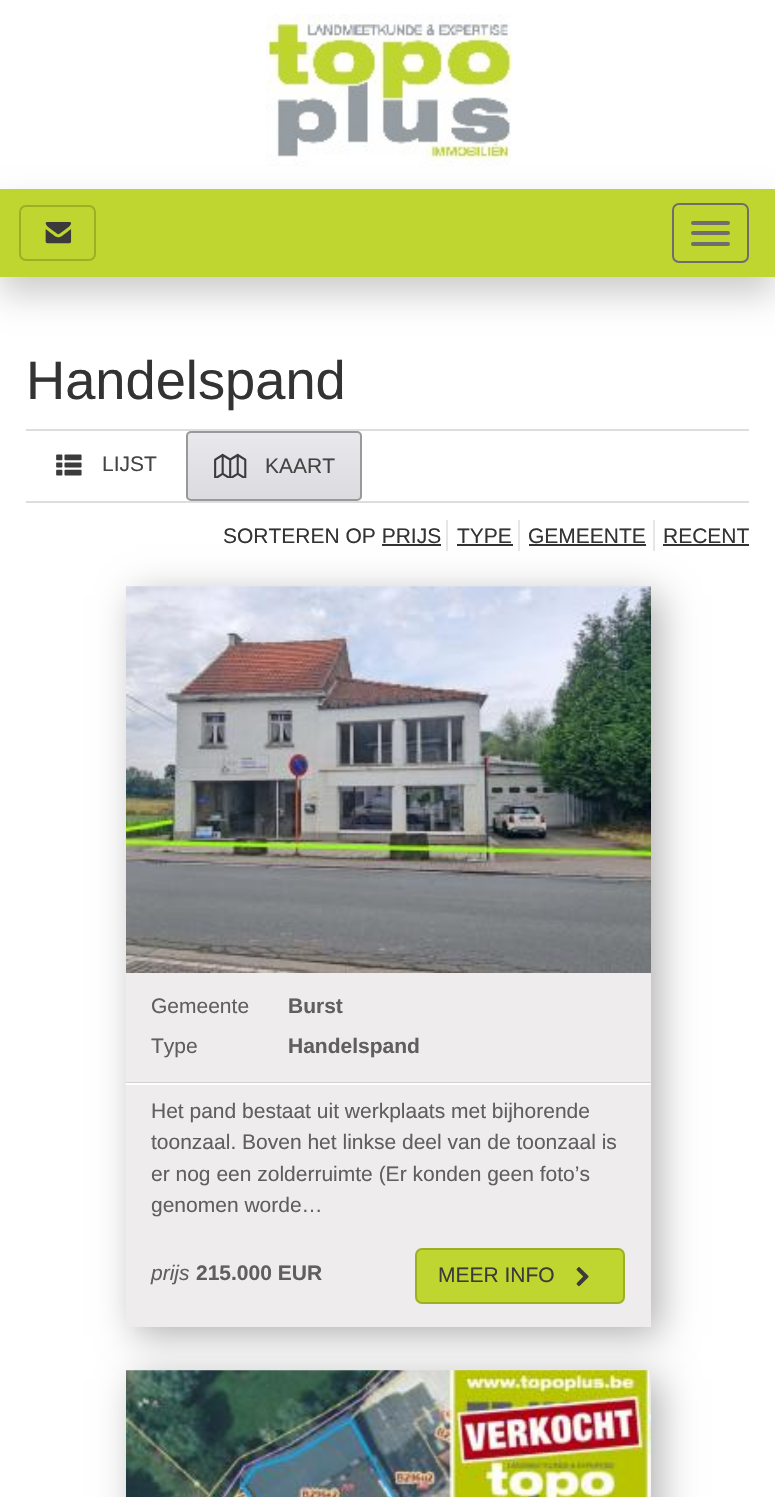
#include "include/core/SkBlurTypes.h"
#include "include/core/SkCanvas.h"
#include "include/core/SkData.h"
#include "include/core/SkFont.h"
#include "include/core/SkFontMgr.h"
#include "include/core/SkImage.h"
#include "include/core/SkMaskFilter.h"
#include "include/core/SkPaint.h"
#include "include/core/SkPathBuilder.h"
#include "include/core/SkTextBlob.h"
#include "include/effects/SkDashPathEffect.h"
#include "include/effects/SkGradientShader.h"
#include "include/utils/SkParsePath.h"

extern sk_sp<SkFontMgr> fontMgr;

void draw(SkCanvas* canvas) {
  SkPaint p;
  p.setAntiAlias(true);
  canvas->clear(SK_ColorWHITE);
  canvas->drawImageRect(SkImages::DeferredFromEncodedData(SkData::MakeFromFileName("images/1.png")), SkRect::MakeLTRB(266, 14, 511, 166), SkSamplingOptions());
  p.setColor(SkColorSetARGB(51, 0, 0, 0));
  p.setMaskFilter(SkMaskFilter::MakeBlur(kNormal_SkBlurStyle, 17.5f));
  canvas->drawRect(SkRect::MakeLTRB(0, 207, 775, 294), p);
  p.setMaskFilter(nullptr);
  p.setColor(SkColorSetRGB(191, 214, 48));
  canvas->drawRect(SkRect::MakeLTRB(0, 189, 775, 277), p);
  p.setStyle(SkPaint::kStroke_Style);
  p.setStrokeWidth(2);
  p.setColor(SkColorSetRGB(157, 176, 35));
  canvas->drawRoundRect(SkRect::MakeLTRB(20, 206, 95, 260), 6, 6, p);
  canvas->drawImageRect(SkImages::DeferredFromEncodedData(SkData::MakeFromFileName("images/2.png")), SkRect::MakeLTRB(45, 222, 72, 244), SkSamplingOptions());
  p.setColor(SkColorSetRGB(110, 110, 110));
  canvas->drawRoundRect(SkRect::MakeLTRB(673, 204, 748, 262), 6, 6, p);
  p.setStyle(SkPaint::kFill_Style);
  canvas->drawRoundRect(SkRect::MakeLTRB(691, 221, 730, 225), 2, 2, p);
  canvas->drawRoundRect(SkRect::MakeLTRB(691, 231, 730, 235), 2, 2, p);
  canvas->drawRoundRect(SkRect::MakeLTRB(691, 242, 730, 246), 2, 2, p);
  p.setColor(SkColorSetRGB(221, 221, 221));
  canvas->drawRect(SkRect::MakeLTRB(26, 429, 749, 431), p);
  canvas->drawRect(SkRect::MakeLTRB(26, 501, 749, 503), p);
  canvas->drawImageRect(SkImages::DeferredFromEncodedData(SkData::MakeFromFileName("images/3.png")), SkRect::MakeLTRB(56, 454, 82, 476), SkSamplingOptions());
  canvas->save();
  canvas->clipPath(SkPathBuilder().moveTo(191, 431).lineTo(357, 431).cubicTo(360, 431, 362, 433, 362, 436).lineTo(362, 496).cubicTo(362, 499, 360, 501, 357, 501).lineTo(191, 501).cubicTo(188, 501, 186, 499, 186, 496).lineTo(186, 436).cubicTo(186, 433, 188, 431, 191, 431).close().detach(), true);
  {
    const SkColor colors[] = {SkColorSetRGB(233, 233, 236), SkColorSetRGB(219, 219, 224)};
    const float stops[] = {0, 1};
    const SkPoint ends[] = {{274, 432}, {274, 499}};
    p.setShader(SkGradientShader::MakeLinear(ends, colors, stops, 2, SkTileMode::kClamp));
    p.setAlpha(255);
  }
  canvas->drawRect(SkRect::MakeLTRB(186, 432, 362, 499), p);
  canvas->restore();
  p.setStyle(SkPaint::kStroke_Style);
  p.setShader(nullptr);
  p.setColor(SkColorSetRGB(153, 153, 153));
  canvas->drawRoundRect(SkRect::MakeLTRB(187, 432, 361, 500), 4, 4, p);
  canvas->drawImageRect(SkImages::DeferredFromEncodedData(SkData::MakeFromFileName("images/4.png")), SkRect::MakeLTRB(214, 453, 247, 478), SkSamplingOptions());
  p.setStyle(SkPaint::kFill_Style);
  p.setColor(SkColorSetRGB(230, 230, 230));
  canvas->drawRect(SkRect::MakeLTRB(446, 520, 448, 551), p);
  p.setColor(SkColorSetRGB(51, 51, 51));
  canvas->drawRect(SkRect::MakeLTRB(457, 544, 513, 546), p);
  p.setColor(SkColorSetRGB(230, 230, 230));
  canvas->drawRect(SkRect::MakeLTRB(518, 520, 520, 551), p);
  p.setColor(SkColorSetRGB(51, 51, 51));
  canvas->drawRect(SkRect::MakeLTRB(529, 544, 646, 546), p);
  p.setColor(SkColorSetRGB(230, 230, 230));
  canvas->drawRect(SkRect::MakeLTRB(653, 520, 655, 551), p);
  p.setColor(SkColorSetRGB(51, 51, 51));
  canvas->drawRect(SkRect::MakeLTRB(663, 544, 749, 546), p);
  canvas->drawRect(SkRect::MakeLTRB(382, 544, 441, 546), p);
  p.setColor(SkColorSetARGB(77, 0, 0, 0));
  p.setMaskFilter(SkMaskFilter::MakeBlur(kNormal_SkBlurStyle, 17.5f));
  canvas->drawRect(SkRect::MakeLTRB(135, 595, 660, 1335), p);
  p.setMaskFilter(nullptr);
  p.setColor(SkColorSetRGB(238, 236, 236));
  canvas->drawRect(SkRect::MakeLTRB(126, 586, 651, 1327), p);
  canvas->drawImageRect(SkImages::DeferredFromEncodedData(SkData::MakeFromFileName("images/5.png")), SkRect::MakeLTRB(126, 586, 651, 973), SkSamplingOptions());
  p.setColor(SkColorSetRGB(214, 209, 209));
  canvas->drawRect(SkRect::MakeLTRB(126, 1082, 651, 1083), p);
  p.setColor(SK_ColorWHITE);
  canvas->drawRect(SkRect::MakeLTRB(126, 1083, 651, 1085), p);
  p.setColor(SkColorSetRGB(191, 214, 48));
  canvas->drawRoundRect(SkRect::MakeLTRB(416, 1249, 624, 1303), 6, 6, p);
  p.setStyle(SkPaint::kStroke_Style);
  p.setColor(SkColorSetRGB(157, 176, 35));
  canvas->drawRoundRect(SkRect::MakeLTRB(416, 1249, 624, 1303), 6, 6, p);
  canvas->drawImageRect(SkImages::DeferredFromEncodedData(SkData::MakeFromFileName("images/6.png")), SkRect::MakeLTRB(576, 1267, 589, 1287), SkSamplingOptions());
  p.setStyle(SkPaint::kFill_Style);
  p.setColor(SkColorSetARGB(77, 0, 0, 0));
  p.setMaskFilter(SkMaskFilter::MakeBlur(kNormal_SkBlurStyle, 17.5f));
  canvas->drawRect(SkRect::MakeLTRB(135, 1379, 660, 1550), p);
  p.setMaskFilter(nullptr);
  canvas->drawImageRect(SkImages::DeferredFromEncodedData(SkData::MakeFromFileName("images/7.png")), SkRect::MakeLTRB(126, 1370, 651, 1497), SkSamplingOptions());
  SkFont font1(fontMgr->matchFamilyStyle("Liberation Sans", SkFontStyle::Normal()), 54.25f);
  font1.setSubpixel(true);
  p.setColor(SkColorSetRGB(51, 51, 51));
  canvas->drawString("Handelspand", 26, 399, font1, p);
  SkFont font2(fontMgr->matchFamilyStyle("Liberation Sans", SkFontStyle::Normal()), 21);
  font2.setSubpixel(true);
  p.setColor(SkColorSetRGB(68, 68, 68));
  canvas->drawString("LIJST", 102, 471, font2, p);
  canvas->drawString("KAART", 265, 473, font2, p);
  p.setColor(SkColorSetRGB(51, 51, 51));
  canvas->drawString("SORTEREN OP PRIJS", 223, 543, font2, p);
  canvas->drawString("TYPE", 457, 543, font2, p);
  canvas->drawString("GEMEENTE", 528, 543, font2, p);
  canvas->drawString("RECENT", 663, 543, font2, p);
  p.setColor(SkColorSetRGB(95, 95, 95));
  canvas->drawString("Gemeente", 151, 1013, font2, p);
  SkFont font3(fontMgr->matchFamilyStyle("Liberation Sans", SkFontStyle::Bold()), 21);
  font3.setSubpixel(true);
  canvas->drawString("Burst", 288, 1013, font3, p);
  canvas->drawString("Type", 151, 1053, font2, p);
  canvas->drawString("Handelspand", 288, 1053, font3, p);
  canvas->drawString("Het pand bestaat uit werkplaats met bijhorende", 151, 1118, font2, p);
  canvas->drawString("toonzaal. Boven het linkse deel van de toonzaal is", 151, 1149, font2, p);
  canvas->drawString("er nog een zolderruimte (Er konden geen foto’s", 151, 1181, font2, p);
  canvas->drawString("genomen worde…", 151, 1212, font2, p);
  SkFont font4(fontMgr->matchFamilyStyle("Liberation Sans", SkFontStyle::Italic()), 21);
  font4.setSubpixel(true);
  canvas->drawString("prijs", 151, 1280, font4, p);
  canvas->drawString("215.000 EUR", 196, 1280, font3, p);
  p.setColor(SkColorSetRGB(59, 59, 59));
  canvas->drawString("MEER INFO", 438, 1282, font2, p);
}
